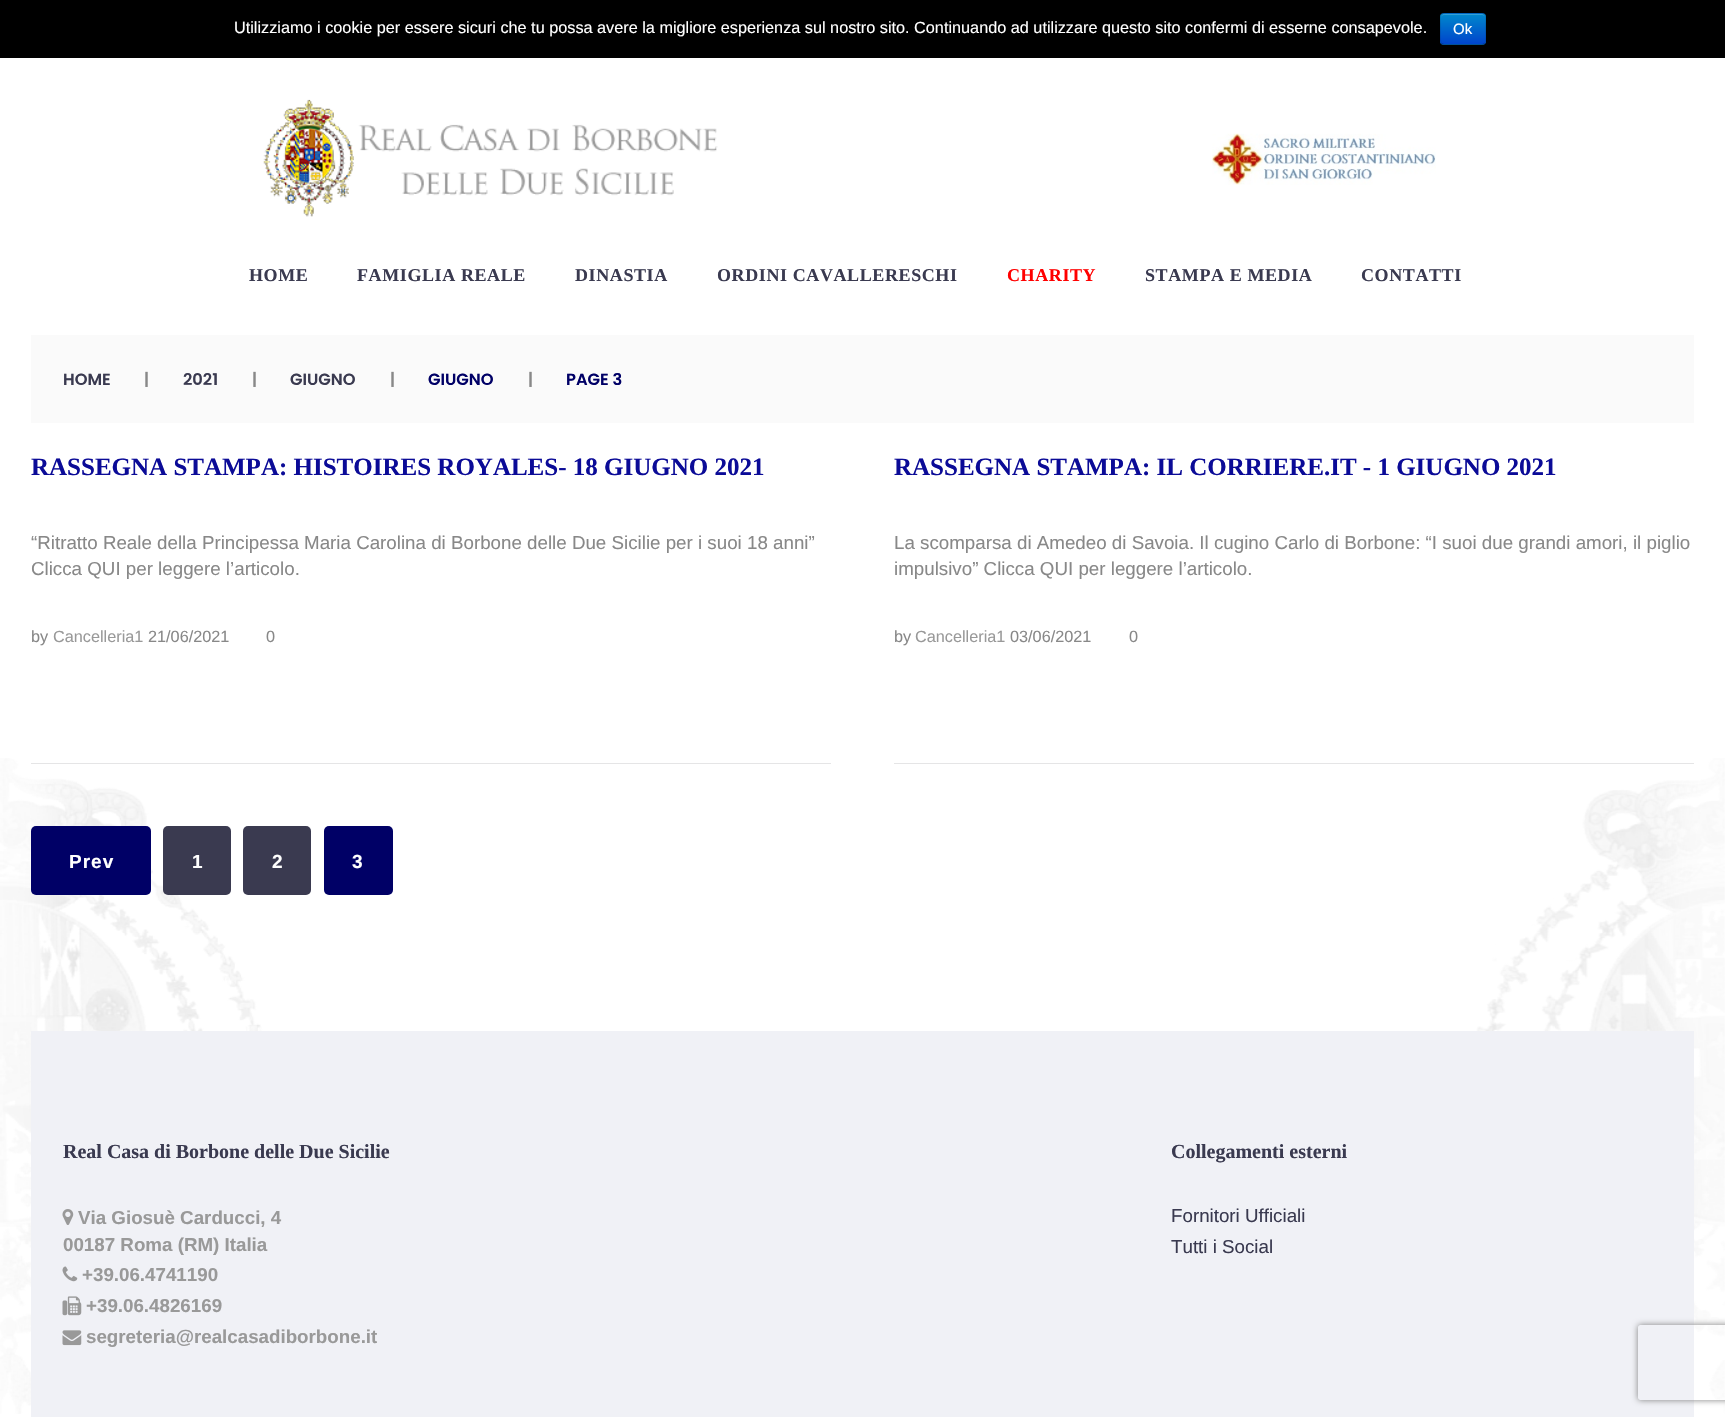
#include "include/core/SkBlurTypes.h"
#include "include/core/SkCanvas.h"
#include "include/core/SkData.h"
#include "include/core/SkFont.h"
#include "include/core/SkFontMgr.h"
#include "include/core/SkImage.h"
#include "include/core/SkMaskFilter.h"
#include "include/core/SkPaint.h"
#include "include/core/SkPathBuilder.h"
#include "include/core/SkTextBlob.h"
#include "include/effects/SkDashPathEffect.h"
#include "include/effects/SkGradientShader.h"
#include "include/utils/SkParsePath.h"

extern sk_sp<SkFontMgr> fontMgr;

void draw(SkCanvas* canvas) {
  SkPaint p;
  p.setAntiAlias(true);
  auto spacedText = [&](const char* s, float x, float y, const SkFont& font, const SkPaint& ink, float letter, float word) {
    std::vector<SkGlyphID> glyphs(font.countText(s, strlen(s), SkTextEncoding::kUTF8));
    std::vector<float> xs(glyphs.size());
    font.textToGlyphs(s, strlen(s), SkTextEncoding::kUTF8, glyphs);
    font.getXPos(glyphs, xs, x);
    float extra = 0;
    for (size_t i = 0; i < glyphs.size(); i++) {
      xs[i] += extra;
      extra += letter + word * (glyphs[i] == font.unicharToGlyph(' '));
    }
    canvas->drawTextBlob(SkTextBlob::MakeFromPosHGlyphs(glyphs, xs, y, font), 0, 0, ink);
  };
  canvas->clear(SK_ColorWHITE);
  canvas->drawImageRect(SkImages::DeferredFromEncodedData(SkData::MakeFromFileName("images/1.png")), SkRect::MakeLTRB(0, 758, 1725, 1414), SkSamplingOptions());
  p.setColor(SK_ColorBLACK);
  canvas->drawRect(SkRect::MakeLTRB(0, 0, 1725, 58), p);
  p.setColor(SkColorSetRGB(0, 109, 204));
  canvas->drawRoundRect(SkRect::MakeLTRB(1440, 13, 1486, 45), 4, 4, p);
  canvas->save();
  canvas->clipPath(SkPathBuilder().moveTo(1444, 13).lineTo(1482, 13).cubicTo(1484, 13, 1486, 15, 1486, 17).lineTo(1486, 41).cubicTo(1486, 43, 1484, 45, 1482, 45).lineTo(1444, 45).cubicTo(1442, 45, 1440, 43, 1440, 41).lineTo(1440, 17).cubicTo(1440, 15, 1442, 13, 1444, 13).close().detach(), true);
  {
    const SkColor colors[] = {SkColorSetRGB(0, 136, 204), SkColorSetRGB(0, 68, 204)};
    const float stops[] = {0, 1};
    const SkPoint ends[] = {{1463, 14}, {1463, 44}};
    p.setShader(SkGradientShader::MakeLinear(ends, colors, stops, 2, SkTileMode::kClamp));
    p.setAlpha(255);
  }
  canvas->drawRect(SkRect::MakeLTRB(1440, 14, 1486, 44), p);
  canvas->restore();
  p.setShader(nullptr);
  p.setColor(SkColorSetRGB(51, 159, 214));
  canvas->drawPath(SkPathBuilder().moveTo(1444, 15).lineTo(1482, 15).cubicTo(1484, 15, 1485, 16, 1485, 18).cubicTo(1485, 13, 1481, 14, 1476, 14).lineTo(1450, 14).cubicTo(1445, 14, 1441, 13, 1441, 18).cubicTo(1441, 16, 1442, 15, 1444, 15).close().detach(), p);
  p.setStyle(SkPaint::kStroke_Style);
  p.setStrokeWidth(1.2f);
  p.setColor(SkColorSetARGB(64, 0, 0, 0));
  canvas->drawPath(SkPathBuilder().moveTo(1484.5f, 43.5f).lineTo(1482.5f, 44.5f).lineTo(1444, 44.5f).lineTo(1441.5f, 43.5f).detach(), p);
  p.setColor(SkColorSetARGB(26, 0, 0, 0));
  canvas->drawPath(SkPathBuilder().moveTo(1441.5f, 43.5f).cubicTo(1439.5f, 41.5f, 1440.5f, 31.5f, 1440.5f, 29).cubicTo(1440.5f, 14, 1437, 13, 1450, 13).lineTo(1476, 13).cubicTo(1489, 13, 1485.5f, 14, 1485.5f, 29).cubicTo(1485.5f, 31.5f, 1487, 41.5f, 1484.5f, 43.5f).detach(), p);
  canvas->drawImageRect(SkImages::DeferredFromEncodedData(SkData::MakeFromFileName("images/2.png")), SkRect::MakeLTRB(263, 99, 718, 217), SkSamplingOptions());
  canvas->drawImageRect(SkImages::DeferredFromEncodedData(SkData::MakeFromFileName("images/3.png")), SkRect::MakeLTRB(1212, 133, 1436, 185), SkSamplingOptions());
  p.setStyle(SkPaint::kFill_Style);
  p.setColor(SkColorSetRGB(250, 250, 250));
  canvas->drawRect(SkRect::MakeLTRB(31, 335, 1694, 423), p);
  p.setColor(SkColorSetRGB(229, 229, 230));
  canvas->drawRect(SkRect::MakeLTRB(31, 763, 831, 764), p);
  canvas->drawRect(SkRect::MakeLTRB(894, 763, 1694, 764), p);
  p.setColor(SkColorSetRGB(0, 0, 102));
  canvas->drawRoundRect(SkRect::MakeLTRB(31, 826, 151, 895), 5, 5, p);
  p.setColor(SkColorSetRGB(58, 58, 80));
  canvas->drawRoundRect(SkRect::MakeLTRB(163, 826, 231, 895), 5, 5, p);
  canvas->drawRoundRect(SkRect::MakeLTRB(243, 826, 311, 895), 5, 5, p);
  p.setColor(SkColorSetRGB(0, 0, 102));
  canvas->drawRoundRect(SkRect::MakeLTRB(324, 826, 393, 895), 5, 5, p);
  p.setColor(SkColorSetRGB(240, 241, 246));
  canvas->drawRect(SkRect::MakeLTRB(31, 1031, 1694, 1417), p);
  canvas->drawImageRect(SkImages::DeferredFromEncodedData(SkData::MakeFromFileName("images/4.png")), SkRect::MakeLTRB(62, 1209, 74, 1225), SkSamplingOptions());
  canvas->drawImageRect(SkImages::DeferredFromEncodedData(SkData::MakeFromFileName("images/5.png")), SkRect::MakeLTRB(62, 1266, 78, 1282), SkSamplingOptions());
  canvas->drawImageRect(SkImages::DeferredFromEncodedData(SkData::MakeFromFileName("images/6.png")), SkRect::MakeLTRB(62, 1296, 82, 1316), SkSamplingOptions());
  canvas->drawImageRect(SkImages::DeferredFromEncodedData(SkData::MakeFromFileName("images/7.png")), SkRect::MakeLTRB(62, 1330, 82, 1346), SkSamplingOptions());
  canvas->save();
  canvas->clipPath(SkPathBuilder(SkPathFillType::kEvenOdd).moveTo(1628, 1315).lineTo(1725, 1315).lineTo(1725, 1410).lineTo(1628, 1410).close().moveTo(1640.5f, 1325).lineTo(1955.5f, 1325).cubicTo(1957, 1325, 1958, 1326, 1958, 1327.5f).lineTo(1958, 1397.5f).cubicTo(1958, 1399, 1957, 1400, 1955.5f, 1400).lineTo(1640.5f, 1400).cubicTo(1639, 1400, 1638, 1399, 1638, 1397.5f).lineTo(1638, 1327.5f).cubicTo(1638, 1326, 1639, 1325, 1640.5f, 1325).close().detach(), true);
  p.setColor(SkColorSetRGB(128, 128, 128));
  p.setMaskFilter(SkMaskFilter::MakeBlur(kNormal_SkBlurStyle, 3));
  canvas->drawRoundRect(SkRect::MakeLTRB(1638, 1325, 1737, 1400), 2.5f, 2.5f, p);
  p.setMaskFilter(nullptr);
  canvas->restore();
  SkFont font1(fontMgr->matchFamilyStyle("Liberation Sans", SkFontStyle::Normal()), 16.25f);
  font1.setSubpixel(true);
  p.setColor(SK_ColorWHITE);
  canvas->drawString("Utilizziamo i cookie per essere sicuri che tu possa avere la migliore esperienza sul nostro sito. Continuando ad utilizzare questo sito confermi di esserne consapevole.", 234, 33, font1, p);
  SkFont font2(fontMgr->matchFamilyStyle("Liberation Sans", SkFontStyle::Normal()), 15);
  font2.setSubpixel(true);
  canvas->drawString("Ok", 1453, 34, font2, p);
  SkFont font3(fontMgr->matchFamilyStyle("Liberation Serif", SkFontStyle::Bold()), 18);
  font3.setSubpixel(true);
  p.setColor(SkColorSetRGB(58, 58, 80));
  spacedText("HOME", 249, 281, font3, p, 0.6f, 0);
  spacedText("FAMIGLIA REALE", 357, 281, font3, p, 0.6f, 0);
  spacedText("DINASTIA", 575, 281, font3, p, 0.6f, 0);
  spacedText("ORDINI CAVALLERESCHI", 717, 281, font3, p, 0.6f, 0);
  p.setColor(SkColorSetRGB(255, 0, 0));
  spacedText("CHARITY", 1007, 281, font3, p, 0.6f, 0);
  p.setColor(SkColorSetRGB(58, 58, 80));
  spacedText("STAMPA E MEDIA", 1145, 281, font3, p, 0.6f, 0);
  spacedText("CONTATTI", 1361, 281, font3, p, 0.6f, 0);
  SkFont font4(fontMgr->matchFamilyStyle("Poppins", SkFontStyle(600, SkFontStyle::kNormal_Width, SkFontStyle::kUpright_Slant)), 16.25f);
  font4.setSubpixel(true);
  canvas->drawString("HOME", 63, 385, font4, p);
  p.setColor(SkColorSetRGB(136, 136, 136));
  canvas->drawString("|", 144, 385, font4, p);
  p.setColor(SkColorSetRGB(58, 58, 80));
  canvas->drawString("2021", 183, 385, font4, p);
  p.setColor(SkColorSetRGB(136, 136, 136));
  canvas->drawString("|", 252, 385, font4, p);
  p.setColor(SkColorSetRGB(58, 58, 80));
  canvas->drawString("GIUGNO", 290, 385, font4, p);
  p.setColor(SkColorSetRGB(136, 136, 136));
  canvas->drawString("|", 390, 385, font4, p);
  p.setColor(SkColorSetRGB(0, 0, 102));
  canvas->drawString("GIUGNO", 428, 385, font4, p);
  p.setColor(SkColorSetRGB(136, 136, 136));
  canvas->drawString("|", 528, 385, font4, p);
  p.setColor(SkColorSetRGB(0, 0, 102));
  canvas->drawString("PAGE 3", 566, 385, font4, p);
  SkFont font5(fontMgr->matchFamilyStyle("Liberation Serif", SkFontStyle::Bold()), 25);
  font5.setSubpixel(true);
  p.setColor(SkColorSetRGB(11, 11, 151));
  canvas->drawString("RASSEGNA STAMPA: HISTOIRES ROYALES- 18 GIUGNO 2021", 31, 475, font5, p);
  SkFont font6(fontMgr->matchFamilyStyle("Liberation Sans", SkFontStyle::Normal()), 18.75f);
  font6.setSubpixel(true);
  p.setColor(SkColorSetRGB(136, 136, 136));
  canvas->drawString("“Ritratto Reale della Principessa Maria Carolina di Borbone delle Due Sicilie per i suoi 18 anni”", 31, 549, font6, p);
  canvas->drawString("Clicca QUI per leggere l’articolo.", 31, 575, font6, p);
  canvas->drawString("by", 31, 642, font1, p);
  p.setColor(SkColorSetRGB(153, 153, 153));
  canvas->drawString("Cancelleria1", 53, 642, font1, p);
  p.setColor(SkColorSetRGB(136, 136, 136));
  canvas->drawString("21/06/2021", 148, 642, font1, p);
  canvas->drawString("0", 266, 642, font1, p);
  p.setColor(SkColorSetRGB(11, 11, 151));
  canvas->drawString("RASSEGNA STAMPA: IL CORRIERE.IT - 1 GIUGNO 2021", 894, 475, font5, p);
  p.setColor(SkColorSetRGB(136, 136, 136));
  canvas->drawString("La scomparsa di Amedeo di Savoia. Il cugino Carlo di Borbone: “I suoi due grandi amori, il piglio", 894, 549, font6, p);
  canvas->drawString("impulsivo” Clicca QUI per leggere l’articolo.", 894, 575, font6, p);
  canvas->drawString("by", 894, 642, font1, p);
  p.setColor(SkColorSetRGB(153, 153, 153));
  canvas->drawString("Cancelleria1", 915, 642, font1, p);
  p.setColor(SkColorSetRGB(136, 136, 136));
  canvas->drawString("03/06/2021", 1010, 642, font1, p);
  canvas->drawString("0", 1129, 642, font1, p);
  SkFont font7(fontMgr->matchFamilyStyle("Liberation Sans", SkFontStyle::Bold()), 19);
  font7.setSubpixel(true);
  p.setColor(SK_ColorWHITE);
  spacedText("Prev", 69, 868, font7, p, 1, 0);
  canvas->drawString("1", 192, 868, font7, p);
  canvas->drawString("2", 272, 868, font7, p);
  canvas->drawString("3", 352, 868, font7, p);
  SkFont font8(fontMgr->matchFamilyStyle("Liberation Serif", SkFontStyle::Bold()), 20);
  font8.setSubpixel(true);
  p.setColor(SkColorSetRGB(58, 58, 80));
  canvas->drawString("Real Casa di Borbone delle Due Sicilie", 63, 1158, font8, p);
  SkFont font9(fontMgr->matchFamilyStyle("Liberation Sans", SkFontStyle::Bold()), 18.75f);
  font9.setSubpixel(true);
  p.setColor(SkColorSetRGB(153, 153, 153));
  canvas->drawString("Via Giosuè Carducci, 4", 78, 1224, font9, p);
  canvas->drawString("00187 Roma (RM) Italia", 63, 1251, font9, p);
  canvas->drawString("+39.06.4741190", 82, 1281, font9, p);
  canvas->drawString("+39.06.4826169", 86, 1312, font9, p);
  canvas->drawString("segreteria@realcasadiborbone.it", 86, 1343, font9, p);
  p.setColor(SkColorSetRGB(58, 58, 80));
  canvas->drawString("Collegamenti esterni", 1171, 1158, font8, p);
  canvas->drawString("Fornitori Ufficiali", 1171, 1222, font6, p);
  canvas->drawString("Tutti i Social", 1171, 1253, font6, p);
}
